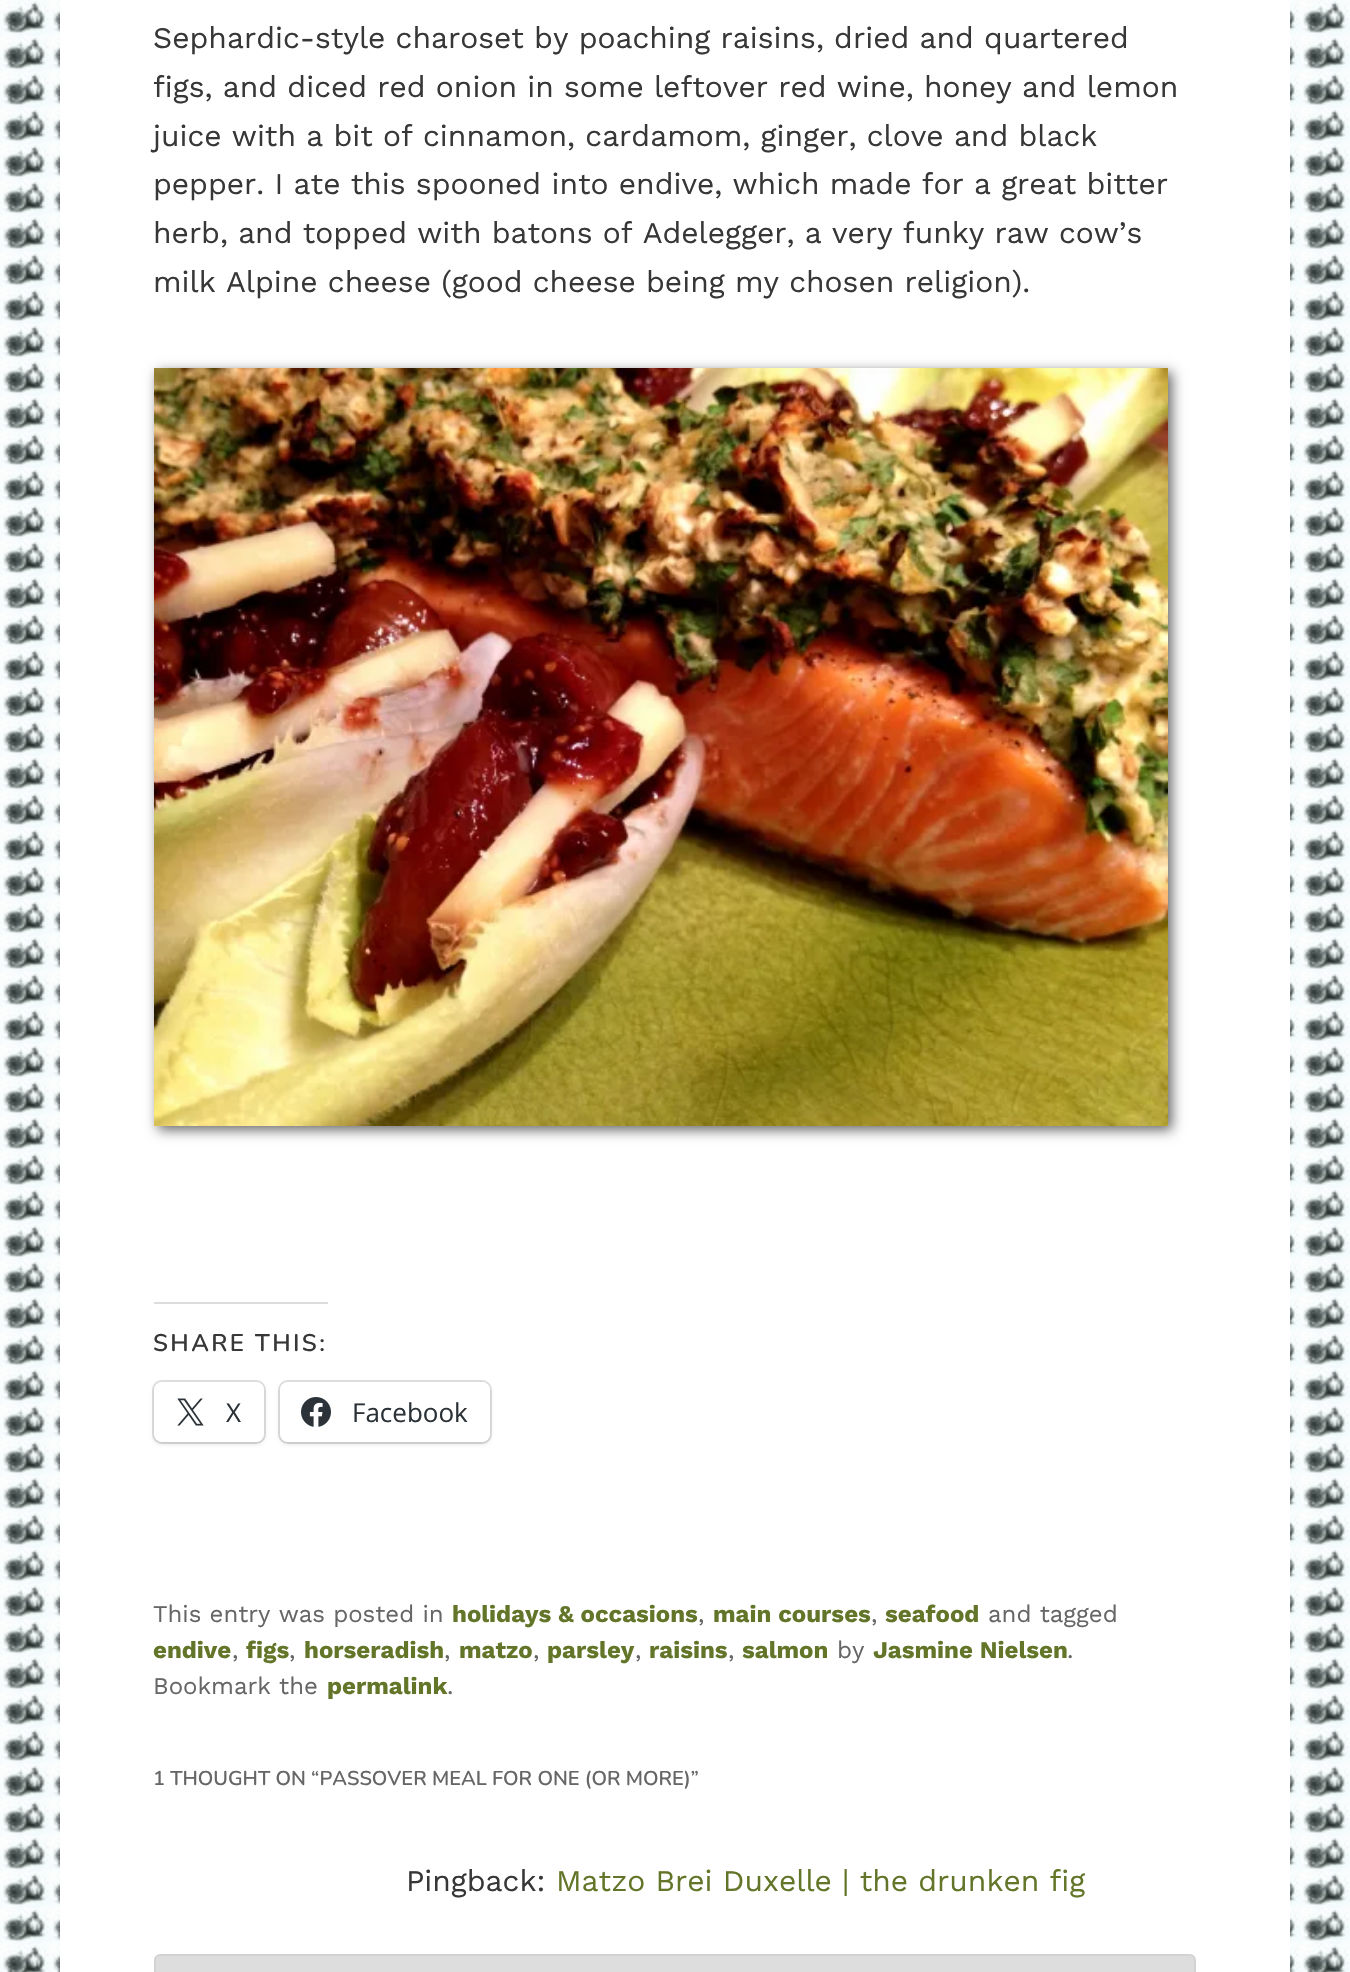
#include "include/core/SkBlurTypes.h"
#include "include/core/SkCanvas.h"
#include "include/core/SkData.h"
#include "include/core/SkFont.h"
#include "include/core/SkFontMgr.h"
#include "include/core/SkImage.h"
#include "include/core/SkMaskFilter.h"
#include "include/core/SkPaint.h"
#include "include/core/SkPathBuilder.h"
#include "include/core/SkTextBlob.h"
#include "include/effects/SkDashPathEffect.h"
#include "include/effects/SkGradientShader.h"
#include "include/utils/SkParsePath.h"

extern sk_sp<SkFontMgr> fontMgr;

void draw(SkCanvas* canvas) {
  SkPaint p;
  p.setAntiAlias(true);
  auto spacedText = [&](const char* s, float x, float y, const SkFont& font, const SkPaint& ink, float letter, float word) {
    std::vector<SkGlyphID> glyphs(font.countText(s, strlen(s), SkTextEncoding::kUTF8));
    std::vector<float> xs(glyphs.size());
    font.textToGlyphs(s, strlen(s), SkTextEncoding::kUTF8, glyphs);
    font.getXPos(glyphs, xs, x);
    float extra = 0;
    for (size_t i = 0; i < glyphs.size(); i++) {
      xs[i] += extra;
      extra += letter + word * (glyphs[i] == font.unicharToGlyph(' '));
    }
    canvas->drawTextBlob(SkTextBlob::MakeFromPosHGlyphs(glyphs, xs, y, font), 0, 0, ink);
  };
  canvas->clear(SK_ColorWHITE);
  canvas->drawImageRect(SkImages::DeferredFromEncodedData(SkData::MakeFromFileName("images/1.png")), SkRect::MakeLTRB(0, 0, 1350, 1972), SkSamplingOptions());
  p.setColor(SK_ColorWHITE);
  canvas->drawRect(SkRect::MakeLTRB(60, 0, 1290, 1972), p);
  p.setColor(SkColorSetRGB(102, 102, 102));
  p.setMaskFilter(SkMaskFilter::MakeBlur(kNormal_SkBlurStyle, 6));
  canvas->drawRect(SkRect::MakeLTRB(158, 372, 1172, 1130), p);
  p.setMaskFilter(nullptr);
  canvas->drawImageRect(SkImages::DeferredFromEncodedData(SkData::MakeFromFileName("images/2.png")), SkRect::MakeLTRB(154, 368, 1168, 1126), SkSamplingOptions());
  p.setColor(SkColorSetRGB(220, 220, 222));
  canvas->drawRect(SkRect::MakeLTRB(154, 1302, 328, 1304), p);
  p.setStyle(SkPaint::kStroke_Style);
  p.setStrokeWidth(2);
  p.setColor(SkColorSetRGB(224, 224, 224));
  canvas->drawRoundRect(SkRect::MakeLTRB(153, 1381, 265, 1443), 9, 9, p);
  p.setStyle(SkPaint::kFill_Style);
  p.setColor(SkColorSetARGB(31, 0, 0, 0));
  p.setMaskFilter(SkMaskFilter::MakeBlur(kNormal_SkBlurStyle, 2));
  canvas->drawRoundRect(SkRect::MakeLTRB(154, 1384, 264, 1444), 8, 8, p);
  p.setMaskFilter(nullptr);
  p.setColor(SK_ColorWHITE);
  canvas->drawRoundRect(SkRect::MakeLTRB(154, 1382, 264, 1442), 8, 8, p);
  canvas->drawImageRect(SkImages::DeferredFromEncodedData(SkData::MakeFromFileName("images/3.png")), SkRect::MakeLTRB(177, 1398, 204, 1426), SkSamplingOptions());
  p.setStyle(SkPaint::kStroke_Style);
  p.setColor(SkColorSetRGB(224, 224, 224));
  canvas->drawRoundRect(SkRect::MakeLTRB(279, 1381, 491, 1443), 9, 9, p);
  p.setStyle(SkPaint::kFill_Style);
  p.setColor(SkColorSetARGB(31, 0, 0, 0));
  p.setMaskFilter(SkMaskFilter::MakeBlur(kNormal_SkBlurStyle, 2));
  canvas->drawRoundRect(SkRect::MakeLTRB(280, 1384, 490, 1444), 8, 8, p);
  p.setMaskFilter(nullptr);
  p.setColor(SK_ColorWHITE);
  canvas->drawRoundRect(SkRect::MakeLTRB(280, 1382, 490, 1442), 8, 8, p);
  canvas->drawImageRect(SkImages::DeferredFromEncodedData(SkData::MakeFromFileName("images/4.png")), SkRect::MakeLTRB(301, 1397, 331, 1427), SkSamplingOptions());
  p.setColor(SkColorSetRGB(221, 221, 221));
  canvas->drawRoundRect(SkRect::MakeLTRB(155, 1955, 1195, 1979), 5, 5, p);
  p.setStyle(SkPaint::kStroke_Style);
  p.setColor(SkColorSetRGB(211, 211, 211));
  canvas->drawRoundRect(SkRect::MakeLTRB(155, 1955, 1195, 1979), 5, 5, p);
  SkFont font1(fontMgr->matchFamilyStyle("Work Sans", SkFontStyle::Normal()), 30);
  font1.setSubpixel(true);
  p.setStyle(SkPaint::kFill_Style);
  p.setColor(SkColorSetRGB(55, 55, 55));
  canvas->drawString("Sephardic-style charoset by poaching raisins, dried and quartered", 153, 48, font1, p);
  canvas->drawString("figs, and diced red onion in some leftover red wine, honey and lemon", 153, 97, font1, p);
  canvas->drawString("juice with a bit of cinnamon, cardamom, ginger, clove and black", 153, 146, font1, p);
  canvas->drawString("pepper. I ate this spooned into endive, which made for a great bitter", 153, 194, font1, p);
  canvas->drawString("herb, and topped with batons of Adelegger, a very funky raw cow’s", 153, 243, font1, p);
  canvas->drawString("milk Alpine cheese (good cheese being my chosen religion).", 153, 292, font1, p);
  SkFont font2(fontMgr->matchFamilyStyle("Nunito", SkFontStyle(200, SkFontStyle::kNormal_Width, SkFontStyle::kUpright_Slant)), 24);
  font2.setSubpixel(true);
  spacedText("SHARE THIS:", 153, 1351, font2, p, 2.4f, 0);
  SkFont font3(fontMgr->matchFamilyStyle("Open Sans", SkFontStyle::Normal()), 26);
  font3.setSubpixel(true);
  p.setColor(SkColorSetRGB(44, 51, 56));
  canvas->drawString("X", 226, 1422, font3, p);
  canvas->drawString("Facebook", 352, 1422, font3, p);
  SkFont font4(fontMgr->matchFamilyStyle("Work Sans", SkFontStyle::Normal()), 24);
  font4.setSubpixel(true);
  p.setColor(SkColorSetRGB(102, 102, 102));
  canvas->drawString("This entry was posted in", 153, 1622, font4, p);
  SkFont font5(fontMgr->matchFamilyStyle("Work Sans", SkFontStyle::Bold()), 24);
  font5.setSubpixel(true);
  p.setColor(SkColorSetRGB(99, 117, 40));
  canvas->drawString("holidays & occasions", 452, 1622, font5, p);
  p.setColor(SkColorSetRGB(102, 102, 102));
  canvas->drawString(",", 698, 1622, font4, p);
  p.setColor(SkColorSetRGB(99, 117, 40));
  canvas->drawString("main courses", 713, 1622, font5, p);
  p.setColor(SkColorSetRGB(102, 102, 102));
  canvas->drawString(",", 871, 1622, font4, p);
  p.setColor(SkColorSetRGB(99, 117, 40));
  canvas->drawString("seafood", 885, 1622, font5, p);
  p.setColor(SkColorSetRGB(102, 102, 102));
  canvas->drawString("and tagged", 988, 1622, font4, p);
  p.setColor(SkColorSetRGB(99, 117, 40));
  canvas->drawString("endive", 153, 1658, font5, p);
  p.setColor(SkColorSetRGB(102, 102, 102));
  canvas->drawString(",", 232, 1658, font4, p);
  p.setColor(SkColorSetRGB(99, 117, 40));
  canvas->drawString("figs", 246, 1658, font5, p);
  p.setColor(SkColorSetRGB(102, 102, 102));
  canvas->drawString(",", 289, 1658, font4, p);
  p.setColor(SkColorSetRGB(99, 117, 40));
  canvas->drawString("horseradish", 304, 1658, font5, p);
  p.setColor(SkColorSetRGB(102, 102, 102));
  canvas->drawString(",", 444, 1658, font4, p);
  p.setColor(SkColorSetRGB(99, 117, 40));
  canvas->drawString("matzo", 459, 1658, font5, p);
  p.setColor(SkColorSetRGB(102, 102, 102));
  canvas->drawString(",", 533, 1658, font4, p);
  p.setColor(SkColorSetRGB(99, 117, 40));
  canvas->drawString("parsley", 547, 1658, font5, p);
  p.setColor(SkColorSetRGB(102, 102, 102));
  canvas->drawString(",", 635, 1658, font4, p);
  p.setColor(SkColorSetRGB(99, 117, 40));
  canvas->drawString("raisins", 649, 1658, font5, p);
  p.setColor(SkColorSetRGB(102, 102, 102));
  canvas->drawString(",", 728, 1658, font4, p);
  p.setColor(SkColorSetRGB(99, 117, 40));
  canvas->drawString("salmon", 742, 1658, font5, p);
  p.setColor(SkColorSetRGB(102, 102, 102));
  canvas->drawString("by", 837, 1658, font4, p);
  p.setColor(SkColorSetRGB(99, 117, 40));
  canvas->drawString("Jasmine Nielsen", 873, 1658, font5, p);
  p.setColor(SkColorSetRGB(102, 102, 102));
  canvas->drawString(".", 1067, 1658, font4, p);
  canvas->drawString("Bookmark the", 153, 1694, font4, p);
  p.setColor(SkColorSetRGB(99, 117, 40));
  canvas->drawString("permalink", 327, 1694, font5, p);
  p.setColor(SkColorSetRGB(102, 102, 102));
  canvas->drawString(".", 447, 1694, font4, p);
  SkFont font6(fontMgr->matchFamilyStyle("Nunito", SkFontStyle(200, SkFontStyle::kNormal_Width, SkFontStyle::kUpright_Slant)), 20);
  font6.setSubpixel(true);
  canvas->drawString("1 THOUGHT ON “PASSOVER MEAL FOR ONE (OR MORE)”", 153, 1785, font6, p);
  p.setColor(SkColorSetRGB(55, 55, 55));
  canvas->drawString("Pingback:", 406, 1891, font1, p);
  p.setColor(SkColorSetRGB(99, 117, 40));
  canvas->drawString("Matzo Brei Duxelle | the drunken fig", 556, 1891, font1, p);
}
